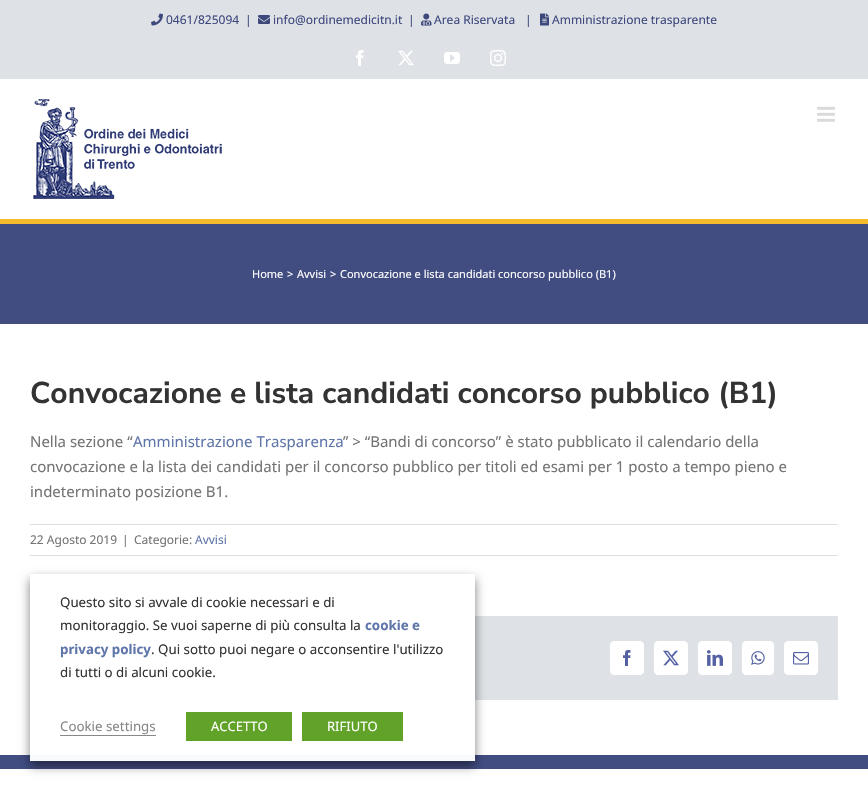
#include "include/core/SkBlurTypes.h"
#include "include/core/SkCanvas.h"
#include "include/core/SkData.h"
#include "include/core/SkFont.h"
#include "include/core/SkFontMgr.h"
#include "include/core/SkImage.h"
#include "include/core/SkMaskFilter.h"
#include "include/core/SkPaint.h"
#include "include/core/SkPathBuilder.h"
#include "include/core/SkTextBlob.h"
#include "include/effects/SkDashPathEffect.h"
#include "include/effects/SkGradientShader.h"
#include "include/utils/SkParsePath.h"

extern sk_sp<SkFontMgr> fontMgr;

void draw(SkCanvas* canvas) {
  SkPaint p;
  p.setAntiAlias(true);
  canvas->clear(SK_ColorWHITE);
  p.setColor(SkColorSetRGB(222, 225, 229));
  canvas->drawRect(SkRect::MakeLTRB(0, 0, 868, 79), p);
  canvas->drawImageRect(SkImages::DeferredFromEncodedData(SkData::MakeFromFileName("images/1.png")), SkRect::MakeLTRB(151, 13, 163, 26), SkSamplingOptions());
  canvas->drawImageRect(SkImages::DeferredFromEncodedData(SkData::MakeFromFileName("images/2.png")), SkRect::MakeLTRB(258, 15, 270, 24), SkSamplingOptions());
  canvas->drawImageRect(SkImages::DeferredFromEncodedData(SkData::MakeFromFileName("images/3.png")), SkRect::MakeLTRB(421, 13, 432, 26), SkSamplingOptions());
  canvas->drawImageRect(SkImages::DeferredFromEncodedData(SkData::MakeFromFileName("images/4.png")), SkRect::MakeLTRB(540, 13, 549, 26), SkSamplingOptions());
  canvas->drawImageRect(SkImages::DeferredFromEncodedData(SkData::MakeFromFileName("images/5.png")), SkRect::MakeLTRB(356, 50, 364, 66), SkSamplingOptions());
  canvas->drawImageRect(SkImages::DeferredFromEncodedData(SkData::MakeFromFileName("images/6.png")), SkRect::MakeLTRB(398, 50, 414, 66), SkSamplingOptions());
  canvas->drawImageRect(SkImages::DeferredFromEncodedData(SkData::MakeFromFileName("images/7.png")), SkRect::MakeLTRB(444, 52, 460, 64), SkSamplingOptions());
  canvas->drawImageRect(SkImages::DeferredFromEncodedData(SkData::MakeFromFileName("images/8.png")), SkRect::MakeLTRB(490, 50, 506, 66), SkSamplingOptions());
  p.setColor(SkColorSetRGB(245, 186, 44));
  canvas->drawRect(SkRect::MakeLTRB(0, 219, 868, 224), p);
  canvas->drawImageRect(SkImages::DeferredFromEncodedData(SkData::MakeFromFileName("images/9.png")), SkRect::MakeLTRB(33, 99, 222, 199), SkSamplingOptions());
  canvas->drawImageRect(SkImages::DeferredFromEncodedData(SkData::MakeFromFileName("images/10.png")), SkRect::MakeLTRB(817, 106, 835, 122), SkSamplingOptions());
  p.setColor(SkColorSetRGB(65, 76, 129));
  canvas->drawRect(SkRect::MakeLTRB(0, 224, 868, 324), p);
  p.setColor(SkColorSetRGB(224, 222, 222));
  canvas->drawRect(SkRect::MakeLTRB(30, 524, 838, 525), p);
  canvas->drawRect(SkRect::MakeLTRB(30, 555, 838, 556), p);
  p.setColor(SkColorSetRGB(222, 225, 229));
  canvas->drawRect(SkRect::MakeLTRB(475, 616, 838, 700), p);
  p.setColor(SK_ColorWHITE);
  canvas->drawRoundRect(SkRect::MakeLTRB(610.5f, 641.5f, 643.5f, 674.5f), 3.5f, 3.5f, p);
  p.setStyle(SkPaint::kStroke_Style);
  p.setStrokeWidth(1);
  canvas->drawRoundRect(SkRect::MakeLTRB(610.5f, 641.5f, 643.5f, 674.5f), 3.5f, 3.5f, p);
  canvas->drawImageRect(SkImages::DeferredFromEncodedData(SkData::MakeFromFileName("images/11.png")), SkRect::MakeLTRB(623, 650, 631, 666), SkSamplingOptions());
  p.setStyle(SkPaint::kFill_Style);
  canvas->drawRoundRect(SkRect::MakeLTRB(654.5f, 641.5f, 687.5f, 674.5f), 3.5f, 3.5f, p);
  p.setStyle(SkPaint::kStroke_Style);
  canvas->drawRoundRect(SkRect::MakeLTRB(654.5f, 641.5f, 687.5f, 674.5f), 3.5f, 3.5f, p);
  canvas->drawImageRect(SkImages::DeferredFromEncodedData(SkData::MakeFromFileName("images/12.png")), SkRect::MakeLTRB(663, 650, 679, 666), SkSamplingOptions());
  p.setStyle(SkPaint::kFill_Style);
  canvas->drawRoundRect(SkRect::MakeLTRB(698.5f, 641.5f, 731.5f, 674.5f), 3.5f, 3.5f, p);
  p.setStyle(SkPaint::kStroke_Style);
  canvas->drawRoundRect(SkRect::MakeLTRB(698.5f, 641.5f, 731.5f, 674.5f), 3.5f, 3.5f, p);
  canvas->drawImageRect(SkImages::DeferredFromEncodedData(SkData::MakeFromFileName("images/13.png")), SkRect::MakeLTRB(707, 650, 723, 666), SkSamplingOptions());
  p.setStyle(SkPaint::kFill_Style);
  canvas->drawRoundRect(SkRect::MakeLTRB(742.5f, 641.5f, 773.5f, 674.5f), 3.5f, 3.5f, p);
  p.setStyle(SkPaint::kStroke_Style);
  canvas->drawRoundRect(SkRect::MakeLTRB(742.5f, 641.5f, 773.5f, 674.5f), 3.5f, 3.5f, p);
  canvas->drawImageRect(SkImages::DeferredFromEncodedData(SkData::MakeFromFileName("images/14.png")), SkRect::MakeLTRB(751, 651, 765, 665), SkSamplingOptions());
  p.setStyle(SkPaint::kFill_Style);
  canvas->drawRoundRect(SkRect::MakeLTRB(784.5f, 641.5f, 817.5f, 674.5f), 3.5f, 3.5f, p);
  p.setStyle(SkPaint::kStroke_Style);
  canvas->drawRoundRect(SkRect::MakeLTRB(784.5f, 641.5f, 817.5f, 674.5f), 3.5f, 3.5f, p);
  canvas->drawImageRect(SkImages::DeferredFromEncodedData(SkData::MakeFromFileName("images/15.png")), SkRect::MakeLTRB(793, 652, 809, 665), SkSamplingOptions());
  p.setStyle(SkPaint::kFill_Style);
  p.setColor(SkColorSetRGB(65, 76, 129));
  canvas->drawRect(SkRect::MakeLTRB(0, 755, 868, 769), p);
  p.setColor(SkColorSetRGB(249, 250, 251));
  canvas->drawRect(SkRect::MakeLTRB(30, 755, 475, 761), p);
  canvas->save();
  canvas->clipPath(SkPathBuilder(SkPathFillType::kEvenOdd).moveTo(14, 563).lineTo(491, 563).lineTo(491, 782).lineTo(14, 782).close().moveTo(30, 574).lineTo(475, 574).lineTo(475, 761).lineTo(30, 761).close().detach(), true);
  p.setColor(SkColorSetARGB(128, 0, 0, 0));
  p.setMaskFilter(SkMaskFilter::MakeBlur(kNormal_SkBlurStyle, 5));
  canvas->drawRect(SkRect::MakeLTRB(30, 579, 475, 766), p);
  p.setMaskFilter(nullptr);
  canvas->restore();
  p.setColor(SkColorSetRGB(137, 136, 136));
  canvas->drawRect(SkRect::MakeLTRB(60, 735, 156, 736), p);
  p.setColor(SkColorSetRGB(97, 162, 41));
  canvas->drawRect(SkRect::MakeLTRB(186, 712, 292, 741), p);
  canvas->drawRect(SkRect::MakeLTRB(302, 712, 403, 741), p);
  SkFont font1(fontMgr->matchFamilyStyle("Noto Sans", SkFontStyle::Normal()), 12);
  font1.setSubpixel(true);
  p.setColor(SkColorSetRGB(61, 72, 125));
  canvas->drawString("0461/825094", 166, 24, font1, p);
  canvas->drawString("|", 245, 24, font1, p);
  canvas->drawString("info@ordinemedicitn.it", 273, 24, font1, p);
  canvas->drawString("|", 408, 24, font1, p);
  canvas->drawString("Area Riservata", 434, 24, font1, p);
  canvas->drawString("|", 525, 24, font1, p);
  canvas->drawString("Amministrazione trasparente", 552, 24, font1, p);
  SkFont font2(fontMgr->matchFamilyStyle("Noto Sans", SkFontStyle::Normal()), 11);
  font2.setSubpixel(true);
  p.setColor(SK_ColorWHITE);
  canvas->drawString("Home", 252, 278, font2, p);
  canvas->drawString(">", 287, 278, font2, p);
  canvas->drawString("Avvisi", 297, 278, font2, p);
  canvas->drawString(">", 330, 278, font2, p);
  canvas->drawString("Convocazione e lista candidati concorso pubblico (B1)", 340, 278, font2, p);
  SkFont font3(fontMgr->matchFamilyStyle("Nunito Sans", SkFontStyle::Bold()), 30);
  font3.setSubpixel(true);
  p.setColor(SkColorSetRGB(51, 51, 51));
  canvas->drawString("Convocazione e lista candidati concorso pubblico (B1)", 30, 403, font3, p);
  SkFont font4(fontMgr->matchFamilyStyle("Noto Sans", SkFontStyle::Normal()), 15);
  font4.setSubpixel(true);
  p.setColor(SkColorSetRGB(116, 116, 116));
  canvas->drawString("Nella sezione “", 30, 447, font4, p);
  p.setColor(SkColorSetRGB(95, 118, 170));
  canvas->drawString("Amministrazione Trasparenza", 133, 447, font4, p);
  p.setColor(SkColorSetRGB(116, 116, 116));
  canvas->drawString("” > “Bandi di concorso” è stato pubblicato il calendario della", 343, 447, font4, p);
  canvas->drawString("convocazione e la lista dei candidati per il concorso pubblico per titoli ed esami per 1 posto a tempo pieno e", 30, 472, font4, p);
  canvas->drawString("indeterminato posizione B1.", 30, 497, font4, p);
  canvas->drawString("22 Agosto 2019", 30, 544, font1, p);
  canvas->drawString("|", 122, 544, font1, p);
  canvas->drawString("Categorie:", 134, 544, font1, p);
  p.setColor(SkColorSetRGB(95, 118, 170));
  canvas->drawString("Avvisi", 195, 544, font1, p);
  SkFont font5(fontMgr->matchFamilyStyle("Noto Sans", SkFontStyle::Normal()), 13.3f);
  font5.setSubpixel(true);
  p.setColor(SkColorSetRGB(51, 51, 51));
  canvas->drawString("Questo sito si avvale di cookie necessari e di", 60, 607, font5, p);
  canvas->drawString("monitoraggio. Se vuoi saperne di più consulta la", 60, 630, font5, p);
  SkFont font6(fontMgr->matchFamilyStyle("Noto Sans", SkFontStyle::Bold()), 13.3f);
  font6.setSubpixel(true);
  p.setColor(SkColorSetRGB(95, 118, 170));
  canvas->drawString("cookie e", 365, 630, font6, p);
  canvas->drawString("privacy policy", 60, 654, font6, p);
  p.setColor(SkColorSetRGB(51, 51, 51));
  canvas->drawString(". Qui sotto puoi negare o acconsentire l'utilizzo", 151, 654, font5, p);
  canvas->drawString("di tutti o di alcuni cookie.", 60, 677, font5, p);
  p.setColor(SkColorSetRGB(137, 136, 136));
  canvas->drawString("Cookie settings", 60, 731, font5, p);
  SkFont font7(fontMgr->matchFamilyStyle("Noto Sans", SkFontStyle::Normal()), 13);
  font7.setSubpixel(true);
  p.setColor(SK_ColorWHITE);
  canvas->drawString("ACCETTO", 211, 731, font7, p);
  canvas->drawString("RIFIUTO", 327, 731, font7, p);
}
